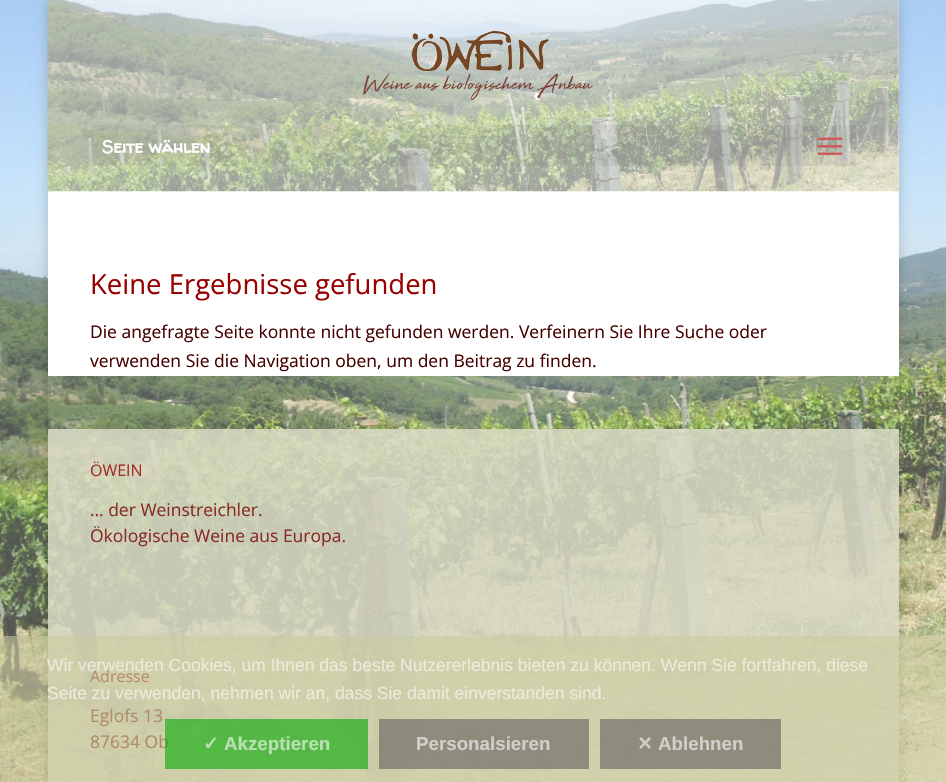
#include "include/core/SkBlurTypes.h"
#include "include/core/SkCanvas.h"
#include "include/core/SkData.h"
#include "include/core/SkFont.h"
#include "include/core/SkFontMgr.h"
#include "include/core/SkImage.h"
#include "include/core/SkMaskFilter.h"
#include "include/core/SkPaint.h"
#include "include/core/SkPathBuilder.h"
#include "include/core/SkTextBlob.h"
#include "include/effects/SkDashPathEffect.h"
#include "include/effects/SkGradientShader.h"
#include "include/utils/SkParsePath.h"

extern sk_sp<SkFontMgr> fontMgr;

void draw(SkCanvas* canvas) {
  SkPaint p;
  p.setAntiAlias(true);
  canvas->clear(SK_ColorWHITE);
  canvas->drawImageRect(SkImages::DeferredFromEncodedData(SkData::MakeFromFileName("images/1.png")), SkRect::MakeLTRB(0, 0, 946, 782), SkSamplingOptions());
  canvas->save();
  canvas->clipPath(SkPathBuilder(SkPathFillType::kEvenOdd).moveTo(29, 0).lineTo(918, 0).lineTo(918, 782).lineTo(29, 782).close().moveTo(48, 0).lineTo(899, 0).lineTo(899, 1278).lineTo(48, 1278).close().detach(), true);
  p.setColor(SkColorSetARGB(51, 0, 0, 0));
  p.setMaskFilter(SkMaskFilter::MakeBlur(kNormal_SkBlurStyle, 6));
  canvas->drawRect(SkRect::MakeLTRB(48, 0, 899, 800), p);
  p.setMaskFilter(nullptr);
  canvas->restore();
  p.setColor(SK_ColorWHITE);
  canvas->drawRect(SkRect::MakeLTRB(48, 0, 899, 376), p);
  canvas->drawImageRect(SkImages::DeferredFromEncodedData(SkData::MakeFromFileName("images/2.png")), SkRect::MakeLTRB(47, 0, 899, 192), SkSamplingOptions());
  canvas->drawImageRect(SkImages::DeferredFromEncodedData(SkData::MakeFromFileName("images/3.png")), SkRect::MakeLTRB(363, 30, 593, 100), SkSamplingOptions());
  p.setColor(SkColorSetARGB(13, 0, 0, 0));
  canvas->drawRect(SkRect::MakeLTRB(90, 125, 856, 166), p);
  canvas->drawImageRect(SkImages::DeferredFromEncodedData(SkData::MakeFromFileName("images/4.png")), SkRect::MakeLTRB(817, 137, 843, 155), SkSamplingOptions());
  p.setColor(SkColorSetARGB(217, 217, 219, 197));
  canvas->drawRect(SkRect::MakeLTRB(48, 429, 899, 782), p);
  SkFont font1(fontMgr->matchFamilyStyle("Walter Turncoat", SkFontStyle::Bold()), 17.5f);
  font1.setSubpixel(true);
  p.setColor(SK_ColorWHITE);
  canvas->drawString("Seite wählen", 102, 153, font1, p);
  SkFont font2(fontMgr->matchFamilyStyle("Open Sans", SkFontStyle::Normal()), 27.5f);
  font2.setSubpixel(true);
  p.setColor(SkColorSetRGB(153, 0, 0));
  canvas->drawString("Keine Ergebnisse gefunden", 90, 294, font2, p);
  SkFont font3(fontMgr->matchFamilyStyle("Open Sans", SkFontStyle::Normal()), 17.5f);
  font3.setSubpixel(true);
  p.setColor(SkColorSetRGB(69, 0, 0));
  canvas->drawString("Die angefragte Seite konnte nicht gefunden werden. Verfeinern Sie Ihre Suche oder", 90, 338, font3, p);
  canvas->drawString("verwenden Sie die Navigation oben, um den Beitrag zu finden.", 90, 367, font3, p);
  SkFont font4(fontMgr->matchFamilyStyle("Open Sans", SkFontStyle::Normal()), 16);
  font4.setSubpixel(true);
  p.setColor(SkColorSetRGB(164, 42, 37));
  canvas->drawString("ÖWEIN", 90, 476, font4, p);
  p.setColor(SkColorSetRGB(136, 44, 38));
  canvas->drawString("… der Weinstreichler.", 90, 516, font3, p);
  canvas->drawString("Ökologische Weine aus Europa.", 90, 542, font3, p);
  p.setColor(SkColorSetRGB(164, 42, 37));
  canvas->drawString("Adresse", 90, 682, font4, p);
  p.setColor(SkColorSetRGB(136, 44, 38));
  canvas->drawString("Eglofs 13", 90, 722, font3, p);
  canvas->drawString("87634 Ob", 90, 748, font3, p);
  p.setColor(SkColorSetARGB(150, 202, 202, 157));
  canvas->drawRect(SkRect::MakeLTRB(0, 636, 946, 782), p);
  SkFont font5(fontMgr->matchFamilyStyle("Liberation Sans", SkFontStyle::Normal()), 17.5f);
  font5.setSubpixel(true);
  p.setColor(SkColorSetRGB(235, 235, 220));
  canvas->drawString("Wir verwenden Cookies, um Ihnen das beste Nutzererlebnis bieten zu können. Wenn Sie fortfahren, diese", 47, 671, font5, p);
  canvas->drawString("Seite zu verwenden, nehmen wir an, dass Sie damit einverstanden sind.", 47, 699, font5, p);
  p.setColor(SkColorSetARGB(150, 0, 170, 0));
  canvas->drawRect(SkRect::MakeLTRB(165, 719, 368, 769), p);
  SkFont font6(fontMgr->matchFamilyStyle("DejaVu Sans", SkFontStyle::Bold()), 18.75f);
  font6.setSubpixel(true);
  p.setColor(SkColorSetRGB(184, 224, 177));
  canvas->drawString("✓", 203, 750, font6, p);
  SkFont font7(fontMgr->matchFamilyStyle("Liberation Sans", SkFontStyle::Bold()), 18.75f);
  font7.setSubpixel(true);
  canvas->drawString("Akzeptieren", 224, 750, font7, p);
  p.setColor(SkColorSetARGB(150, 97, 91, 91));
  canvas->drawRect(SkRect::MakeLTRB(379, 719, 589, 769), p);
  p.setColor(SkColorSetRGB(209, 207, 201));
  canvas->drawString("Personalsieren", 416, 750, font7, p);
  p.setColor(SkColorSetARGB(150, 97, 91, 91));
  canvas->drawRect(SkRect::MakeLTRB(600, 719, 781, 769), p);
  p.setColor(SkColorSetRGB(209, 207, 201));
  canvas->drawString("✕", 637, 750, font6, p);
  canvas->drawString("Ablehnen", 658, 750, font7, p);
}
